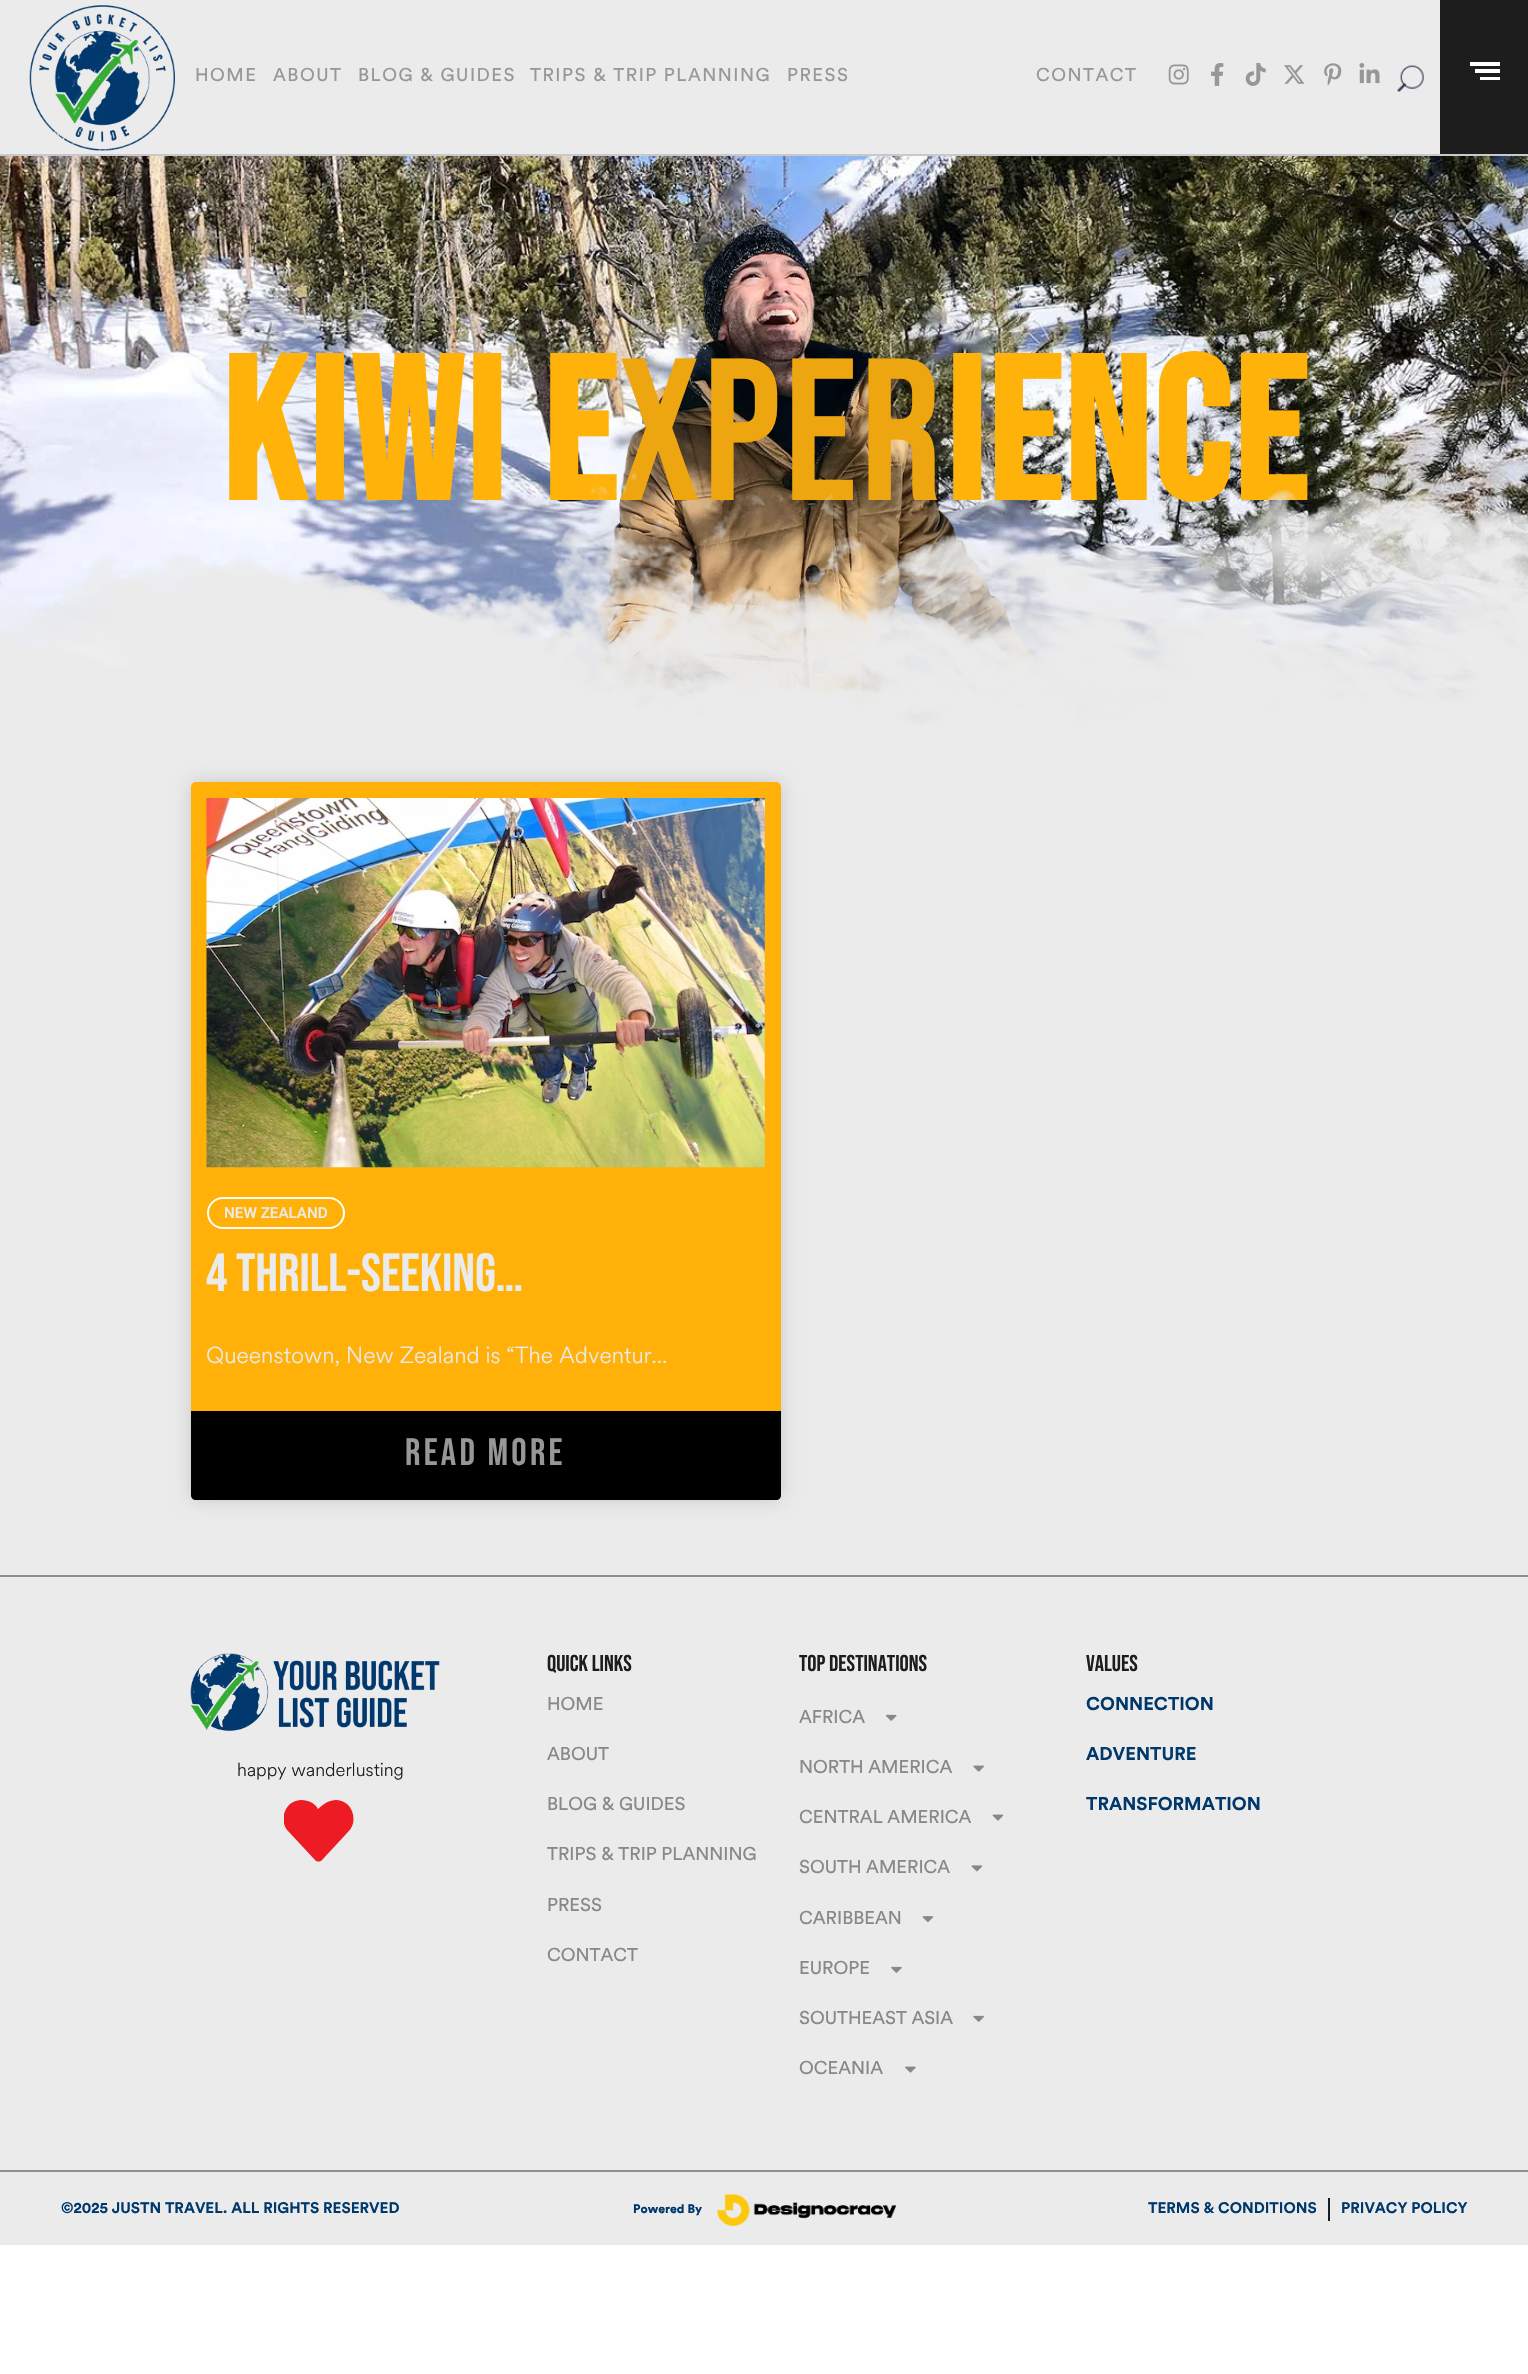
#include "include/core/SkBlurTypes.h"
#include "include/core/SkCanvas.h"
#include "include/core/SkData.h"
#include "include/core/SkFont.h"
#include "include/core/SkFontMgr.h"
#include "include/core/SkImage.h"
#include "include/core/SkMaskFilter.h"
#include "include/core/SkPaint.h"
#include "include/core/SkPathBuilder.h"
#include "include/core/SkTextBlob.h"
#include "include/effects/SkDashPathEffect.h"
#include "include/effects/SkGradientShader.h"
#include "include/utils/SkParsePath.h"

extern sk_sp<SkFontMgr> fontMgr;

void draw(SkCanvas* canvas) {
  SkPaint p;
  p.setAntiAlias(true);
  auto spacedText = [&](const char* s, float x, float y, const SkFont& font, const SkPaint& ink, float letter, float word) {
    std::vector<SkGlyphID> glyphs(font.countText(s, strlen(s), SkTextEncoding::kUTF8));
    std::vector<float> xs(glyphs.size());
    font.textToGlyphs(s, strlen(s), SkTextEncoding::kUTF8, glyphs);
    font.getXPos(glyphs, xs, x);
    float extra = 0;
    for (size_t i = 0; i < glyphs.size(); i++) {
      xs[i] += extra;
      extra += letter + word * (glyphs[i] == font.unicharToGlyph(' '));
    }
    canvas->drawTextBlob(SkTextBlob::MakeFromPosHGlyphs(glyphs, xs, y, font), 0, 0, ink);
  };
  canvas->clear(SK_ColorWHITE);
  p.setColor(SkColorSetRGB(235, 235, 235));
  canvas->drawRect(SkRect::MakeLTRB(0, 0, 1440, 154), p);
  p.setColor(SkColorSetRGB(200, 200, 205));
  canvas->drawRect(SkRect::MakeLTRB(0, 154, 1528, 156), p);
  canvas->drawImageRect(SkImages::DeferredFromEncodedData(SkData::MakeFromFileName("images/1.png")), SkRect::MakeLTRB(29, 5, 175, 151), SkSamplingOptions());
  canvas->drawImageRect(SkImages::DeferredFromEncodedData(SkData::MakeFromFileName("images/2.png")), SkRect::MakeLTRB(1168, 64, 1189, 85), SkSamplingOptions());
  canvas->drawImageRect(SkImages::DeferredFromEncodedData(SkData::MakeFromFileName("images/3.png")), SkRect::MakeLTRB(1211, 63, 1224, 86), SkSamplingOptions());
  canvas->drawImageRect(SkImages::DeferredFromEncodedData(SkData::MakeFromFileName("images/4.png")), SkRect::MakeLTRB(1245, 63, 1266, 86), SkSamplingOptions());
  canvas->drawImageRect(SkImages::DeferredFromEncodedData(SkData::MakeFromFileName("images/5.png")), SkRect::MakeLTRB(1284, 65, 1305, 84), SkSamplingOptions());
  canvas->drawImageRect(SkImages::DeferredFromEncodedData(SkData::MakeFromFileName("images/6.png")), SkRect::MakeLTRB(1324, 63, 1342, 86), SkSamplingOptions());
  canvas->drawImageRect(SkImages::DeferredFromEncodedData(SkData::MakeFromFileName("images/7.png")), SkRect::MakeLTRB(1359, 63, 1380, 84), SkSamplingOptions());
  canvas->drawImageRect(SkImages::DeferredFromEncodedData(SkData::MakeFromFileName("images/8.png")), SkRect::MakeLTRB(1397, 65, 1424, 92), SkSamplingOptions());
  p.setColor(SkColorSetRGB(29, 29, 29));
  canvas->drawRect(SkRect::MakeLTRB(1440, 0, 1528, 154), p);
  p.setColor(SK_ColorWHITE);
  canvas->drawRect(SkRect::MakeLTRB(1470, 62, 1500, 66), p);
  canvas->drawRect(SkRect::MakeLTRB(1475, 69, 1500, 73), p);
  canvas->drawRect(SkRect::MakeLTRB(1480, 77, 1500, 80), p);
  canvas->drawImageRect(SkImages::DeferredFromEncodedData(SkData::MakeFromFileName("images/9.png")), SkRect::MakeLTRB(0, 156, 1528, 768), SkSamplingOptions());
  p.setColor(SkColorSetRGB(235, 235, 235));
  canvas->drawRect(SkRect::MakeLTRB(0, 768, 1528, 1575), p);
  canvas->drawRect(SkRect::MakeLTRB(0, 1577, 1528, 2170), p);
  p.setColor(SkColorSetRGB(144, 143, 143));
  canvas->drawRect(SkRect::MakeLTRB(0, 1575, 1528, 1577), p);
  canvas->drawRect(SkRect::MakeLTRB(0, 2170, 1528, 2172), p);
  canvas->drawImageRect(SkImages::DeferredFromEncodedData(SkData::MakeFromFileName("images/13.png")), SkRect::MakeLTRB(190, 1653, 440, 1731), SkSamplingOptions());
  canvas->save();
  canvas->clipRect(SkRect::MakeLTRB(284, 1796, 354, 1866));
  p.setColor(SkColorSetRGB(237, 27, 36));
  canvas->drawPath(SkPathBuilder().moveTo(347, 1804).cubicTo(337, 1796, 326, 1801, 318, 1809).lineTo(316, 1806).cubicTo(309, 1799, 298, 1798, 290, 1804).cubicTo(282, 1811, 281, 1825, 289, 1832).lineTo(315, 1860).cubicTo(317, 1862, 320, 1862, 322, 1860).lineTo(348, 1832).cubicTo(356, 1825, 355, 1811, 347, 1804).close().detach(), p);
  canvas->restore();
  canvas->drawImageRect(SkImages::DeferredFromEncodedData(SkData::MakeFromFileName("images/14.png")), SkRect::MakeLTRB(885, 1714, 897, 1721), SkSamplingOptions());
  canvas->drawImageRect(SkImages::DeferredFromEncodedData(SkData::MakeFromFileName("images/15.png")), SkRect::MakeLTRB(973, 1765, 984, 1772), SkSamplingOptions());
  canvas->drawImageRect(SkImages::DeferredFromEncodedData(SkData::MakeFromFileName("images/16.png")), SkRect::MakeLTRB(992, 1814, 1004, 1821), SkSamplingOptions());
  canvas->drawImageRect(SkImages::DeferredFromEncodedData(SkData::MakeFromFileName("images/17.png")), SkRect::MakeLTRB(971, 1865, 983, 1872), SkSamplingOptions());
  canvas->drawImageRect(SkImages::DeferredFromEncodedData(SkData::MakeFromFileName("images/18.png")), SkRect::MakeLTRB(922, 1916, 934, 1923), SkSamplingOptions());
  canvas->drawImageRect(SkImages::DeferredFromEncodedData(SkData::MakeFromFileName("images/19.png")), SkRect::MakeLTRB(891, 1966, 902, 1973), SkSamplingOptions());
  canvas->drawImageRect(SkImages::DeferredFromEncodedData(SkData::MakeFromFileName("images/20.png")), SkRect::MakeLTRB(973, 2015, 984, 2022), SkSamplingOptions());
  canvas->drawImageRect(SkImages::DeferredFromEncodedData(SkData::MakeFromFileName("images/21.png")), SkRect::MakeLTRB(905, 2066, 916, 2073), SkSamplingOptions());
  p.setColor(SkColorSetRGB(235, 235, 235));
  canvas->drawRect(SkRect::MakeLTRB(0, 2172, 1528, 2245), p);
  canvas->drawImageRect(SkImages::DeferredFromEncodedData(SkData::MakeFromFileName("images/22.png")), SkRect::MakeLTRB(717, 2194, 896, 2226), SkSamplingOptions());
  p.setColor(SkColorSetRGB(29, 29, 29));
  canvas->drawRect(SkRect::MakeLTRB(1328, 2198, 1330, 2221), p);
  SkFont font1(fontMgr->matchFamilyStyle("Circular", SkFontStyle::Normal()), 18.4f);
  font1.setSubpixel(true);
  p.setColor(SkColorSetRGB(151, 151, 151));
  spacedText("HOME", 195, 81, font1, p, 1.5f, 0);
  spacedText("ABOUT", 273, 81, font1, p, 1.5f, 0);
  spacedText("BLOG & GUIDES", 358, 81, font1, p, 1.5f, 0);
  spacedText("TRIPS & TRIP PLANNING", 530, 81, font1, p, 1.5f, 0);
  spacedText("PRESS", 787, 81, font1, p, 1.5f, 0);
  spacedText("CONTACT", 1036, 81, font1, p, 1.5f, 0);
  SkFont font2(fontMgr->matchFamilyStyle("Bebas Neue", SkFontStyle::Bold()), 202);
  font2.setSubpixel(true);
  p.setColor(SkColorSetRGB(255, 178, 10));
  spacedText("kiwi e", 221, 500, font2, p, 3, 0);
  spacedText("ience", 945, 500, font2, p, 3, 0);
  canvas->drawImageRect(SkImages::DeferredFromEncodedData(SkData::MakeFromFileName("images/10.png")), SkRect::MakeLTRB(597, 224, 1048, 726), SkSamplingOptions());
  SkFont font3(fontMgr->matchFamilyStyle("Bebas Neue", SkFontStyle::Normal()), 202);
  font3.setSubpixel(true);
  p.setColor(SkColorSetRGB(237, 166, 16));
  spacedText("xper", 618, 500, font3, p, 3, 0);
  canvas->drawImageRect(SkImages::DeferredFromEncodedData(SkData::MakeFromFileName("images/11.png")), SkRect::MakeLTRB(0, 431, 1528, 768), SkSamplingOptions());
  p.setColor(SkColorSetARGB(38, 0, 0, 0));
  p.setMaskFilter(SkMaskFilter::MakeBlur(kNormal_SkBlurStyle, 9));
  canvas->drawRoundRect(SkRect::MakeLTRB(191, 782, 781, 1500), 5, 5, p);
  p.setMaskFilter(nullptr);
  p.setColor(SkColorSetRGB(255, 177, 9));
  canvas->drawRoundRect(SkRect::MakeLTRB(191, 782, 781, 1500), 5, 5, p);
  canvas->drawImageRect(SkImages::DeferredFromEncodedData(SkData::MakeFromFileName("images/12.png")), SkRect::MakeLTRB(206, 798, 765, 1168), SkSamplingOptions());
  p.setStyle(SkPaint::kStroke_Style);
  p.setStrokeWidth(2);
  p.setColor(SK_ColorWHITE);
  canvas->drawRoundRect(SkRect::MakeLTRB(208, 1198, 344, 1228), 15, 15, p);
  SkFont font4(fontMgr->matchFamilyStyle("Roboto", SkFontStyle(500, SkFontStyle::kNormal_Width, SkFontStyle::kUpright_Slant)), 15.25f);
  font4.setSubpixel(true);
  p.setStyle(SkPaint::kFill_Style);
  p.setColor(SkColorSetRGB(235, 235, 235));
  canvas->drawString("NEW ZEALAND", 224, 1218, font4, p);
  SkFont font5(fontMgr->matchFamilyStyle("Bebas Neue", SkFontStyle::Normal()), 53.5f);
  font5.setSubpixel(true);
  canvas->drawString("4 Thrill-Seeking…", 206, 1291, font5, p);
  SkFont font6(fontMgr->matchFamilyStyle("Circular", SkFontStyle(300, SkFontStyle::kNormal_Width, SkFontStyle::kUpright_Slant)), 22.9f);
  font6.setSubpixel(true);
  canvas->drawString("Queenstown, New Zealand is “The Adventur...", 206, 1363, font6, p);
  p.setColor(SK_ColorBLACK);
  canvas->drawPath(SkPathBuilder().moveTo(191, 1411).lineTo(781, 1411).lineTo(781, 1495).cubicTo(781, 1498, 779, 1500, 776, 1500).lineTo(196, 1500).cubicTo(193, 1500, 191, 1498, 191, 1495).close().detach(), p);
  SkFont font7(fontMgr->matchFamilyStyle("Bebas Neue", SkFontStyle::Normal()), 38.25f);
  font7.setSubpixel(true);
  p.setColor(SkColorSetRGB(151, 151, 151));
  spacedText("READ MORE", 405, 1465, font7, p, 3.25f, 0);
  SkFont font8(fontMgr->matchFamilyStyle("Circular", SkFontStyle(300, SkFontStyle::kNormal_Width, SkFontStyle::kUpright_Slant)), 18.4f);
  font8.setSubpixel(true);
  p.setColor(SkColorSetRGB(29, 29, 29));
  canvas->drawString("happy wanderlusting", 237, 1776, font8, p);
  SkFont font9(fontMgr->matchFamilyStyle("Bebas Neue", SkFontStyle::Normal()), 22.9f);
  font9.setSubpixel(true);
  canvas->drawString("quick links", 547, 1671, font9, p);
  p.setColor(SkColorSetRGB(136, 136, 136));
  canvas->drawString("HOME", 547, 1710, font1, p);
  canvas->drawString("ABOUT", 547, 1760, font1, p);
  canvas->drawString("BLOG & GUIDES", 547, 1810, font1, p);
  canvas->drawString("TRIPS & TRIP PLANNING", 547, 1860, font1, p);
  canvas->drawString("PRESS", 547, 1911, font1, p);
  canvas->drawString("CONTACT", 547, 1961, font1, p);
  p.setColor(SkColorSetRGB(29, 29, 29));
  canvas->drawString("top destinations", 799, 1671, font9, p);
  p.setColor(SkColorSetRGB(136, 136, 136));
  canvas->drawString("AFRICA", 799, 1723, font1, p);
  canvas->drawString("NORTH AMERICA", 799, 1773, font1, p);
  canvas->drawString("CENTRAL AMERICA", 799, 1823, font1, p);
  canvas->drawString("SOUTH AMERICA", 799, 1873, font1, p);
  canvas->drawString("CARIBBEAN", 799, 1924, font1, p);
  canvas->drawString("EUROPE", 799, 1974, font1, p);
  canvas->drawString("SOUTHEAST ASIA", 799, 2024, font1, p);
  canvas->drawString("OCEANIA", 799, 2074, font1, p);
  p.setColor(SkColorSetRGB(29, 29, 29));
  canvas->drawString("values", 1086, 1671, font9, p);
  SkFont font10(fontMgr->matchFamilyStyle("Circular", SkFontStyle::Bold()), 18.4f);
  font10.setSubpixel(true);
  p.setColor(SkColorSetRGB(0, 56, 108));
  canvas->drawString("CONNECTION", 1086, 1710, font10, p);
  canvas->drawString("ADVENTURE", 1086, 1760, font10, p);
  canvas->drawString("TRANSFORMATION", 1086, 1810, font10, p);
  SkFont font11(fontMgr->matchFamilyStyle("Circular", SkFontStyle::Bold()), 15.25f);
  font11.setSubpixel(true);
  canvas->drawString("©2025 JUSTN TRAVEL. ALL RIGHTS RESERVED", 61, 2213, font11, p);
  SkFont font12(fontMgr->matchFamilyStyle("Circular", SkFontStyle(900, SkFontStyle::kNormal_Width, SkFontStyle::kUpright_Slant)), 12.25f);
  font12.setSubpixel(true);
  canvas->drawString("Powered By", 633, 2213, font12, p);
  canvas->drawString("TERMS & CONDITIONS", 1148, 2213, font11, p);
  canvas->drawString("PRIVACY POLICY", 1341, 2213, font11, p);
}
